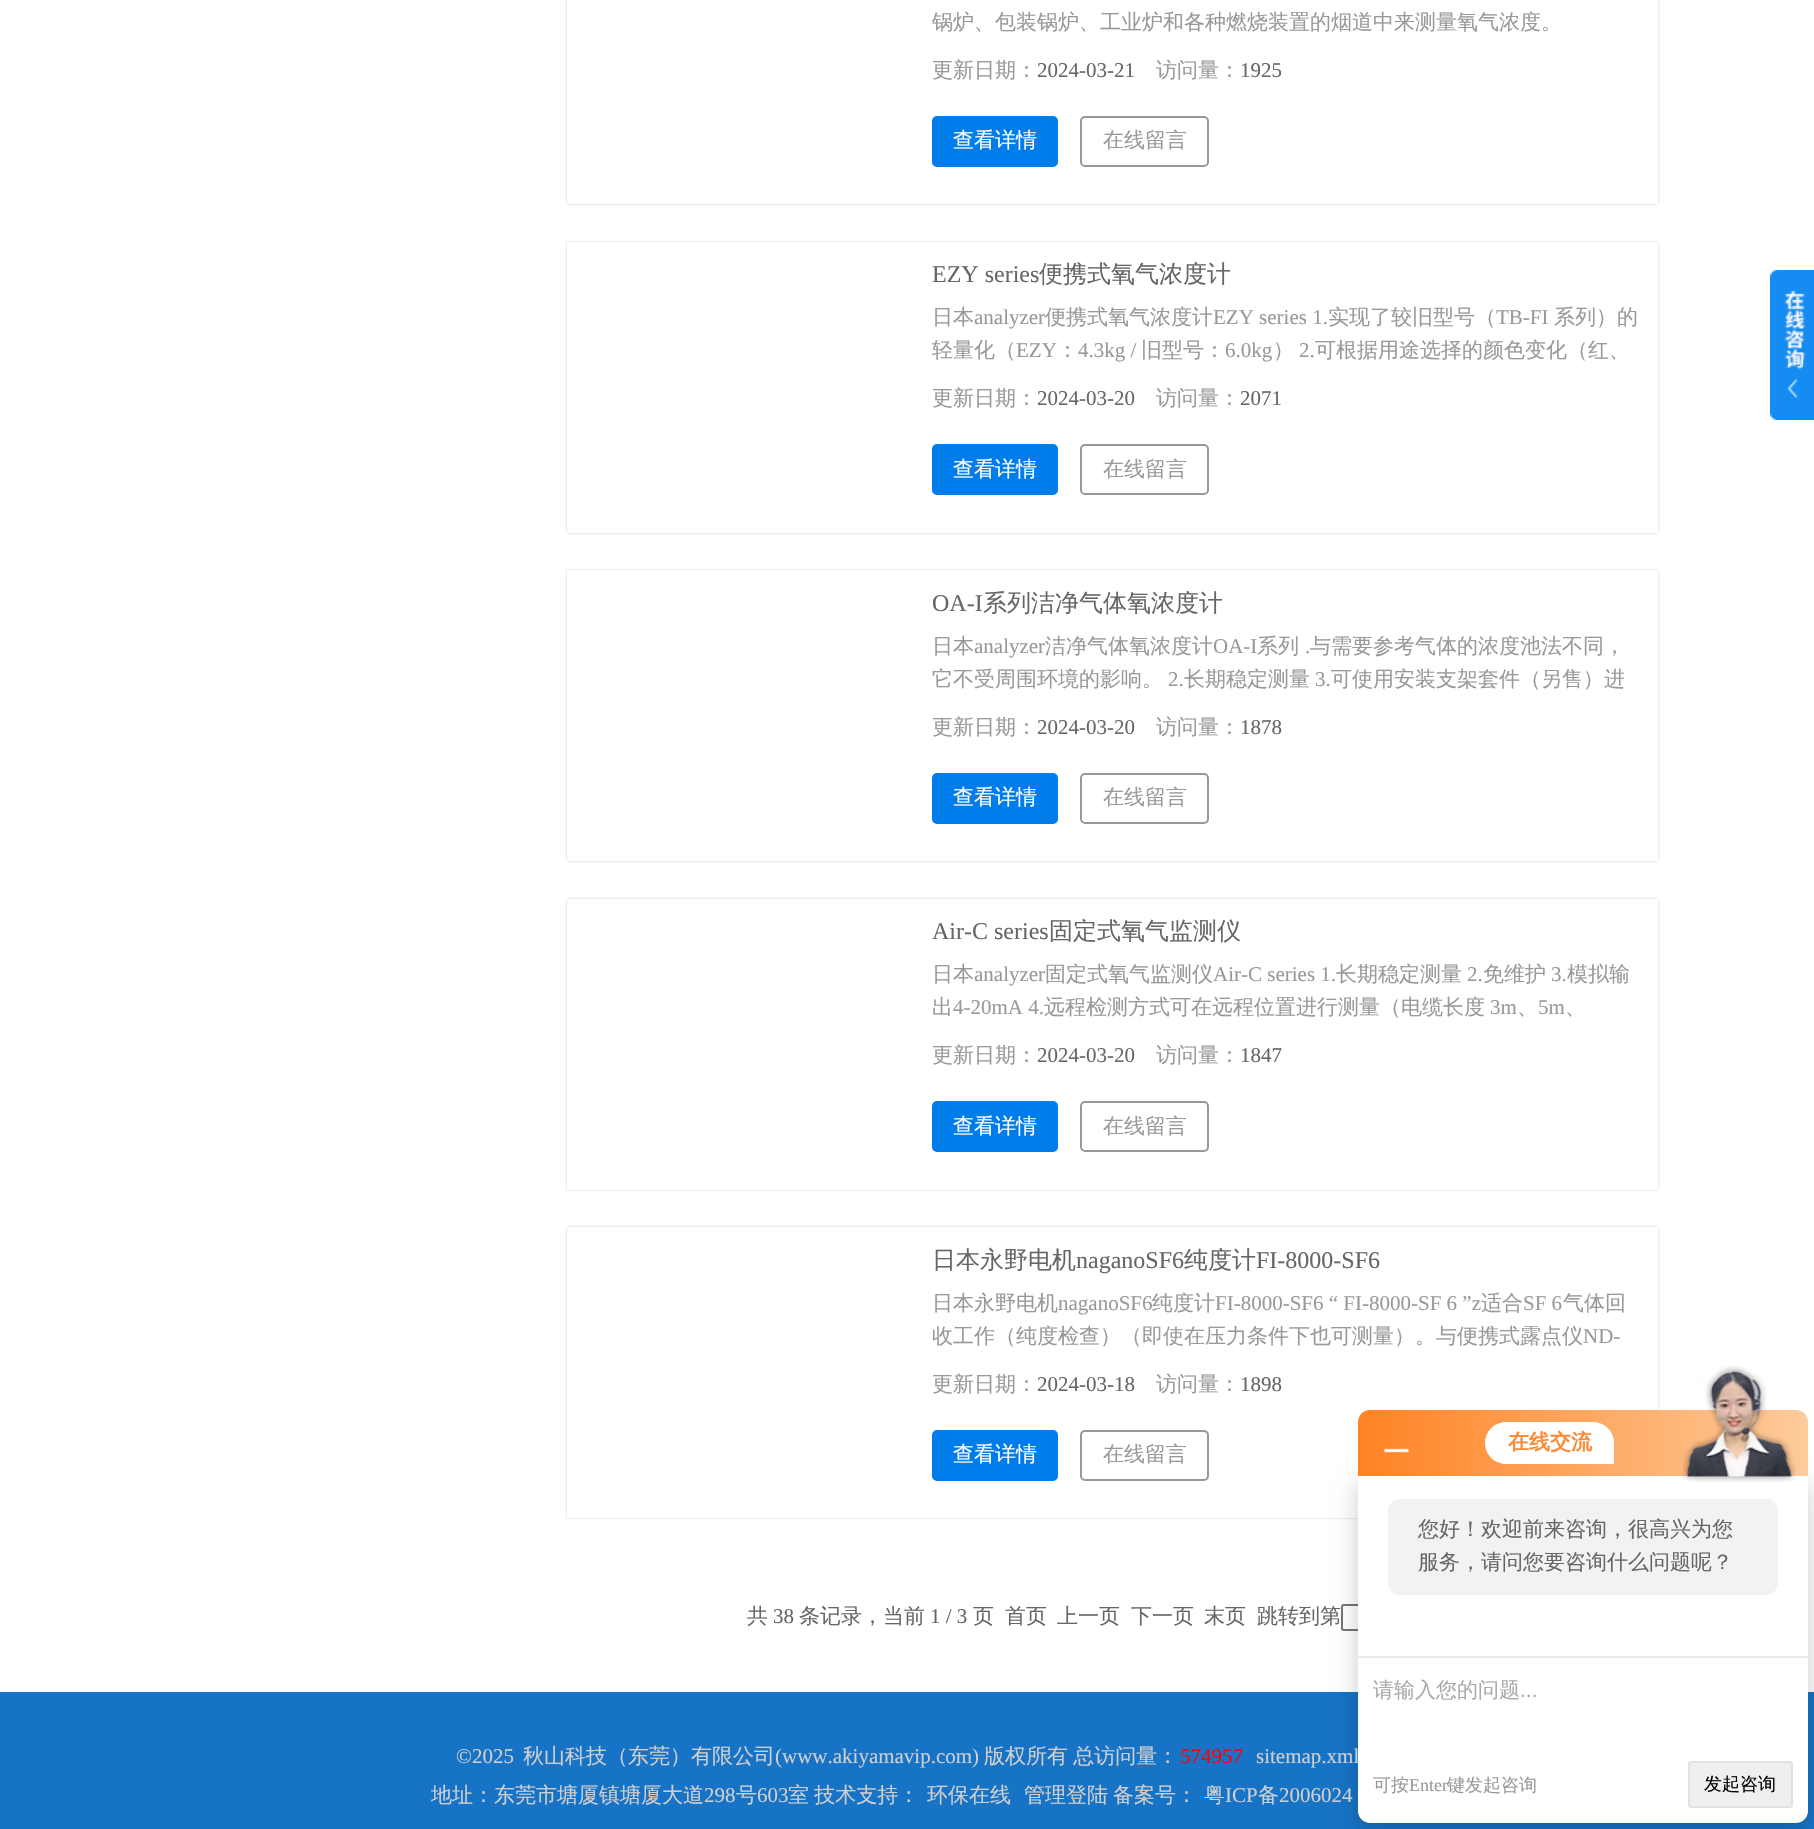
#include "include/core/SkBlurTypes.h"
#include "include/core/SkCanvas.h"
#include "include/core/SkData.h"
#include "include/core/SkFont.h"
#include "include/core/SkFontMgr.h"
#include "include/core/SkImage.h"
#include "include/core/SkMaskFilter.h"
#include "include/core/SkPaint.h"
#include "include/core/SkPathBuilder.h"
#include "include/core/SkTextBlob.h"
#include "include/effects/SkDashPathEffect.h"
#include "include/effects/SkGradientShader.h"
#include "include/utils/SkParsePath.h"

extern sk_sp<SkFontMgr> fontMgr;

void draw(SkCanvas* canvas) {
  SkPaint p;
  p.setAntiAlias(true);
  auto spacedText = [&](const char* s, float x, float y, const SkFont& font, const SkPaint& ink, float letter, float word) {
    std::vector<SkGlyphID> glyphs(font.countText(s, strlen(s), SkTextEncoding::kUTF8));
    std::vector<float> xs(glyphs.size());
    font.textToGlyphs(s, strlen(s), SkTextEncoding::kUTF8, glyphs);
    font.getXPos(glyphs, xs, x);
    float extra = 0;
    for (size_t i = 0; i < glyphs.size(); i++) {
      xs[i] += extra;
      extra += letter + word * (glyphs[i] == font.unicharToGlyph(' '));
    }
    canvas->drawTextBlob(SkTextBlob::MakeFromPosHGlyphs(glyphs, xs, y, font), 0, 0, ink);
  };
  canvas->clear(SK_ColorWHITE);
  p.setColor(SkColorSetRGB(204, 204, 204));
  p.setMaskFilter(SkMaskFilter::MakeBlur(kNormal_SkBlurStyle, 1));
  canvas->drawRect(SkRect::MakeLTRB(567, -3, 1658, 204), p);
  p.setMaskFilter(nullptr);
  p.setColor(SK_ColorWHITE);
  canvas->drawRect(SkRect::MakeLTRB(567, 0, 1658, 204), p);
  p.setColor(SkColorSetRGB(0, 125, 235));
  canvas->drawRoundRect(SkRect::MakeLTRB(932, 116, 1058, 167), 5, 5, p);
  p.setStyle(SkPaint::kStroke_Style);
  p.setStrokeWidth(2);
  p.setColor(SkColorSetRGB(152, 152, 152));
  canvas->drawRoundRect(SkRect::MakeLTRB(1081, 117, 1208, 166), 4, 4, p);
  p.setStyle(SkPaint::kFill_Style);
  p.setColor(SkColorSetRGB(204, 204, 204));
  p.setMaskFilter(SkMaskFilter::MakeBlur(kNormal_SkBlurStyle, 1));
  canvas->drawRect(SkRect::MakeLTRB(567, 242, 1658, 533), p);
  p.setMaskFilter(nullptr);
  p.setColor(SK_ColorWHITE);
  canvas->drawRect(SkRect::MakeLTRB(567, 242, 1658, 533), p);
  p.setColor(SkColorSetRGB(0, 125, 235));
  canvas->drawRoundRect(SkRect::MakeLTRB(932, 444, 1058, 495), 5, 5, p);
  p.setStyle(SkPaint::kStroke_Style);
  p.setColor(SkColorSetRGB(152, 152, 152));
  canvas->drawRoundRect(SkRect::MakeLTRB(1081, 445, 1208, 494), 4, 4, p);
  p.setStyle(SkPaint::kFill_Style);
  p.setColor(SkColorSetRGB(204, 204, 204));
  p.setMaskFilter(SkMaskFilter::MakeBlur(kNormal_SkBlurStyle, 1));
  canvas->drawRect(SkRect::MakeLTRB(567, 570, 1658, 861), p);
  p.setMaskFilter(nullptr);
  p.setColor(SK_ColorWHITE);
  canvas->drawRect(SkRect::MakeLTRB(567, 570, 1658, 861), p);
  p.setColor(SkColorSetRGB(0, 125, 235));
  canvas->drawRoundRect(SkRect::MakeLTRB(932, 773, 1058, 824), 5, 5, p);
  p.setStyle(SkPaint::kStroke_Style);
  p.setColor(SkColorSetRGB(152, 152, 152));
  canvas->drawRoundRect(SkRect::MakeLTRB(1081, 774, 1208, 823), 4, 4, p);
  p.setStyle(SkPaint::kFill_Style);
  p.setColor(SkColorSetRGB(204, 204, 204));
  p.setMaskFilter(SkMaskFilter::MakeBlur(kNormal_SkBlurStyle, 1));
  canvas->drawRect(SkRect::MakeLTRB(567, 899, 1658, 1190), p);
  p.setMaskFilter(nullptr);
  p.setColor(SK_ColorWHITE);
  canvas->drawRect(SkRect::MakeLTRB(567, 899, 1658, 1190), p);
  p.setColor(SkColorSetRGB(0, 125, 235));
  canvas->drawRoundRect(SkRect::MakeLTRB(932, 1101, 1058, 1152), 5, 5, p);
  p.setStyle(SkPaint::kStroke_Style);
  p.setColor(SkColorSetRGB(152, 152, 152));
  canvas->drawRoundRect(SkRect::MakeLTRB(1081, 1102, 1208, 1151), 4, 4, p);
  p.setStyle(SkPaint::kFill_Style);
  p.setColor(SkColorSetRGB(204, 204, 204));
  p.setMaskFilter(SkMaskFilter::MakeBlur(kNormal_SkBlurStyle, 1));
  canvas->drawRect(SkRect::MakeLTRB(567, 1227, 1658, 1518), p);
  p.setMaskFilter(nullptr);
  p.setColor(SK_ColorWHITE);
  canvas->drawRect(SkRect::MakeLTRB(567, 1227, 1658, 1518), p);
  p.setColor(SkColorSetRGB(0, 125, 235));
  canvas->drawRoundRect(SkRect::MakeLTRB(932, 1430, 1058, 1481), 5, 5, p);
  p.setStyle(SkPaint::kStroke_Style);
  p.setColor(SkColorSetRGB(152, 152, 152));
  canvas->drawRoundRect(SkRect::MakeLTRB(1081, 1431, 1208, 1480), 4, 4, p);
  p.setColor(SkColorSetRGB(118, 118, 118));
  canvas->drawRoundRect(SkRect::MakeLTRB(1342, 1605, 1376, 1630), 2, 2, p);
  canvas->drawImageRect(SkImages::DeferredFromEncodedData(SkData::MakeFromFileName("images/1.png")), SkRect::MakeLTRB(1770, 270, 1814, 420), SkSamplingOptions());
  p.setStyle(SkPaint::kFill_Style);
  p.setColor(SkColorSetRGB(23, 115, 198));
  canvas->drawRect(SkRect::MakeLTRB(0, 1692, 1814, 1829), p);
  p.setColor(SkColorSetARGB(51, 0, 0, 0));
  p.setMaskFilter(SkMaskFilter::MakeBlur(kNormal_SkBlurStyle, 12));
  canvas->drawRoundRect(SkRect::MakeLTRB(1358, 1482, 1808, 1829), 12, 12, p);
  p.setMaskFilter(nullptr);
  {
    const SkColor colors[] = {SkColorSetRGB(255, 131, 36), SkColorSetRGB(254, 203, 156)};
    const float stops[] = {0, 1};
    const SkPoint ends[] = {{1358, 1443}, {1808, 1443}};
    p.setShader(SkGradientShader::MakeLinear(ends, colors, stops, 2, SkTileMode::kClamp));
    p.setAlpha(255);
  }
  canvas->drawPath(SkPathBuilder().moveTo(1370, 1410).lineTo(1796, 1410).cubicTo(1802.5f, 1410, 1808, 1415.5f, 1808, 1422).lineTo(1808, 1476).lineTo(1358, 1476).lineTo(1358, 1422).cubicTo(1358, 1415.5f, 1363.5f, 1410, 1370, 1410).close().detach(), p);
  canvas->drawImageRect(SkImages::DeferredFromEncodedData(SkData::MakeFromFileName("images/2.png")), SkRect::MakeLTRB(1384, 1448, 1409, 1453), SkSamplingOptions());
  p.setShader(nullptr);
  p.setColor(SK_ColorWHITE);
  canvas->drawPath(SkPathBuilder().moveTo(1506, 1422).lineTo(1593, 1422).cubicTo(1604.5f, 1422, 1614, 1431.5f, 1614, 1443).lineTo(1614, 1464).lineTo(1506, 1464).cubicTo(1494.5f, 1464, 1485, 1454.5f, 1485, 1443).cubicTo(1485, 1431.5f, 1494.5f, 1422, 1506, 1422).close().detach(), p);
  SkFont font1(fontMgr->matchFamilyStyle("WenQuanYi Zen Hei", SkFontStyle(500, SkFontStyle::kNormal_Width, SkFontStyle::kUpright_Slant)), 21);
  font1.setSubpixel(true);
  p.setColor(SkColorSetRGB(153, 153, 153));
  canvas->drawString("锅炉、包装锅炉、工业炉和各种燃烧装置的烟道中来测量氧气浓度。", 932, 29, font1, p);
  canvas->drawString("更新日期：", 932, 77, font1, p);
  SkFont font2(fontMgr->matchFamilyStyle("Liberation Serif", SkFontStyle::Normal()), 21);
  font2.setSubpixel(true);
  p.setColor(SkColorSetRGB(102, 102, 102));
  canvas->drawString("2024-03-21", 1037, 77, font2, p);
  p.setColor(SkColorSetRGB(153, 153, 153));
  canvas->drawString("访问量：", 1156, 77, font1, p);
  p.setColor(SkColorSetRGB(102, 102, 102));
  canvas->drawString("1925", 1240, 77, font2, p);
  p.setColor(SK_ColorWHITE);
  canvas->drawString("查看详情", 953, 147, font1, p);
  p.setColor(SkColorSetRGB(153, 153, 153));
  canvas->drawString("在线留言", 1103, 147, font1, p);
  SkFont font3(fontMgr->matchFamilyStyle("Liberation Serif", SkFontStyle::Normal()), 24);
  font3.setSubpixel(true);
  p.setColor(SkColorSetRGB(102, 102, 102));
  canvas->drawString("EZY series", 932, 282, font3, p);
  SkFont font4(fontMgr->matchFamilyStyle("WenQuanYi Zen Hei", SkFontStyle(500, SkFontStyle::kNormal_Width, SkFontStyle::kUpright_Slant)), 24);
  font4.setSubpixel(true);
  canvas->drawString("便携式氧气浓度计", 1039, 282, font4, p);
  p.setColor(SkColorSetRGB(153, 153, 153));
  canvas->drawString("日本", 932, 324, font1, p);
  canvas->drawString("analyzer", 974, 324, font2, p);
  canvas->drawString("便携式氧气浓度计", 1045, 324, font1, p);
  canvas->drawString("EZY series 1.", 1213, 324, font2, p);
  canvas->drawString("实现了较旧型号（", 1328, 324, font1, p);
  canvas->drawString("TB-FI", 1496, 324, font2, p);
  canvas->drawString("系列）的", 1554, 324, font1, p);
  canvas->drawString("轻量化（", 932, 357, font1, p);
  canvas->drawString("EZY", 1016, 357, font2, p);
  canvas->drawString("：", 1057, 357, font1, p);
  canvas->drawString("4.3kg /", 1078, 357, font2, p);
  canvas->drawString("旧型号：", 1141, 357, font1, p);
  canvas->drawString("6.0kg", 1225, 357, font2, p);
  canvas->drawString("）", 1273, 357, font1, p);
  canvas->drawString("2.", 1299, 357, font2, p);
  canvas->drawString("可根据用途选择的颜色变化（红、", 1315, 357, font1, p);
  canvas->drawString("更新日期：", 932, 405, font1, p);
  p.setColor(SkColorSetRGB(102, 102, 102));
  canvas->drawString("2024-03-20", 1037, 405, font2, p);
  p.setColor(SkColorSetRGB(153, 153, 153));
  canvas->drawString("访问量：", 1156, 405, font1, p);
  p.setColor(SkColorSetRGB(102, 102, 102));
  canvas->drawString("2071", 1240, 405, font2, p);
  p.setColor(SK_ColorWHITE);
  canvas->drawString("查看详情", 953, 476, font1, p);
  p.setColor(SkColorSetRGB(153, 153, 153));
  canvas->drawString("在线留言", 1103, 476, font1, p);
  p.setColor(SkColorSetRGB(102, 102, 102));
  canvas->drawString("OA-I", 932, 611, font3, p);
  canvas->drawString("系列洁净气体氧浓度计", 983, 611, font4, p);
  p.setColor(SkColorSetRGB(153, 153, 153));
  canvas->drawString("日本", 932, 653, font1, p);
  canvas->drawString("analyzer", 974, 653, font2, p);
  canvas->drawString("洁净气体氧浓度计", 1045, 653, font1, p);
  canvas->drawString("OA-I", 1213, 653, font2, p);
  canvas->drawString("系列", 1257, 653, font1, p);
  canvas->drawString(".", 1305, 653, font2, p);
  canvas->drawString("与需要参考气体的浓度池法不同，", 1310, 653, font1, p);
  canvas->drawString("它不受周围环境的影响。", 932, 686, font1, p);
  canvas->drawString("2.", 1168, 686, font2, p);
  canvas->drawString("长期稳定测量", 1184, 686, font1, p);
  canvas->drawString("3.", 1315, 686, font2, p);
  canvas->drawString("可使用安装支架套件（另售）进", 1331, 686, font1, p);
  canvas->drawString("更新日期：", 932, 734, font1, p);
  p.setColor(SkColorSetRGB(102, 102, 102));
  canvas->drawString("2024-03-20", 1037, 734, font2, p);
  p.setColor(SkColorSetRGB(153, 153, 153));
  canvas->drawString("访问量：", 1156, 734, font1, p);
  p.setColor(SkColorSetRGB(102, 102, 102));
  canvas->drawString("1878", 1240, 734, font2, p);
  p.setColor(SK_ColorWHITE);
  canvas->drawString("查看详情", 953, 804, font1, p);
  p.setColor(SkColorSetRGB(153, 153, 153));
  canvas->drawString("在线留言", 1103, 804, font1, p);
  p.setColor(SkColorSetRGB(102, 102, 102));
  canvas->drawString("Air-C series", 932, 939, font3, p);
  canvas->drawString("固定式氧气监测仪", 1049, 939, font4, p);
  p.setColor(SkColorSetRGB(153, 153, 153));
  canvas->drawString("日本", 932, 981, font1, p);
  canvas->drawString("analyzer", 974, 981, font2, p);
  canvas->drawString("固定式氧气监测仪", 1045, 981, font1, p);
  canvas->drawString("Air-C series 1.", 1213, 981, font2, p);
  canvas->drawString("长期稳定测量", 1336, 981, font1, p);
  canvas->drawString("2.", 1467, 981, font2, p);
  canvas->drawString("免维护", 1483, 981, font1, p);
  canvas->drawString("3.", 1551, 981, font2, p);
  canvas->drawString("模拟输", 1567, 981, font1, p);
  canvas->drawString("出", 932, 1014, font1, p);
  canvas->drawString("4-20mA 4.", 953, 1014, font2, p);
  canvas->drawString("远程检测方式可在远程位置进行测量（电缆长度", 1044, 1014, font1, p);
  canvas->drawString("3m", 1490, 1014, font2, p);
  canvas->drawString("、", 1517, 1014, font1, p);
  canvas->drawString("5m", 1538, 1014, font2, p);
  canvas->drawString("、", 1565, 1014, font1, p);
  canvas->drawString("更新日期：", 932, 1062, font1, p);
  p.setColor(SkColorSetRGB(102, 102, 102));
  canvas->drawString("2024-03-20", 1037, 1062, font2, p);
  p.setColor(SkColorSetRGB(153, 153, 153));
  canvas->drawString("访问量：", 1156, 1062, font1, p);
  p.setColor(SkColorSetRGB(102, 102, 102));
  canvas->drawString("1847", 1240, 1062, font2, p);
  p.setColor(SK_ColorWHITE);
  canvas->drawString("查看详情", 953, 1133, font1, p);
  p.setColor(SkColorSetRGB(153, 153, 153));
  canvas->drawString("在线留言", 1103, 1133, font1, p);
  p.setColor(SkColorSetRGB(102, 102, 102));
  canvas->drawString("日本永野电机", 932, 1268, font4, p);
  canvas->drawString("naganoSF6", 1076, 1268, font3, p);
  canvas->drawString("纯度计", 1184, 1268, font4, p);
  canvas->drawString("FI-8000-SF6", 1256, 1268, font3, p);
  p.setColor(SkColorSetRGB(153, 153, 153));
  canvas->drawString("日本永野电机", 932, 1310, font1, p);
  canvas->drawString("naganoSF6", 1058, 1310, font2, p);
  canvas->drawString("纯度计", 1152, 1310, font1, p);
  canvas->drawString("FI-8000-SF6 “ FI-8000-SF 6 ”z", 1215, 1310, font2, p);
  canvas->drawString("适合", 1481, 1310, font1, p);
  canvas->drawString("SF 6", 1523, 1310, font2, p);
  canvas->drawString("气体回", 1563, 1310, font1, p);
  canvas->drawString("收工作（纯度检查）（即使在压力条件下也可测量）。与便携式露点仪", 932, 1343, font1, p);
  canvas->drawString("ND-", 1583, 1343, font2, p);
  canvas->drawString("更新日期：", 932, 1391, font1, p);
  p.setColor(SkColorSetRGB(102, 102, 102));
  canvas->drawString("2024-03-18", 1037, 1391, font2, p);
  p.setColor(SkColorSetRGB(153, 153, 153));
  canvas->drawString("访问量：", 1156, 1391, font1, p);
  p.setColor(SkColorSetRGB(102, 102, 102));
  canvas->drawString("1898", 1240, 1391, font2, p);
  p.setColor(SK_ColorWHITE);
  canvas->drawString("查看详情", 953, 1461, font1, p);
  p.setColor(SkColorSetRGB(153, 153, 153));
  canvas->drawString("在线留言", 1103, 1461, font1, p);
  p.setColor(SkColorSetRGB(102, 102, 102));
  canvas->drawString("共", 747, 1623, font1, p);
  canvas->drawString("38", 773, 1623, font2, p);
  canvas->drawString("条记录，当前", 799, 1623, font1, p);
  canvas->drawString("1 / 3", 930, 1623, font2, p);
  canvas->drawString("页", 973, 1623, font1, p);
  canvas->drawString("首页", 1005, 1623, font1, p);
  canvas->drawString("上一页", 1057, 1623, font1, p);
  canvas->drawString("下一页", 1131, 1623, font1, p);
  canvas->drawString("末页", 1204, 1623, font1, p);
  canvas->drawString("跳转到第", 1257, 1623, font1, p);
  p.setColor(SkColorSetRGB(207, 207, 207));
  canvas->drawString("©2025", 456, 1763, font2, p);
  canvas->drawString("秋山科技（东莞）有限公司", 523, 1763, font1, p);
  canvas->drawString("(www.akiyamavip.com)", 775, 1763, font2, p);
  spacedText("版权所有 总访问量：", 984, 1763, font1, p, 0, -1);
  p.setColor(SkColorSetRGB(255, 0, 0));
  canvas->drawString("574957", 1180, 1763, font2, p);
  p.setColor(SkColorSetRGB(207, 207, 207));
  canvas->drawString("sitemap.xml", 1256, 1763, font2, p);
  canvas->drawString("地址：东莞市塘厦镇塘厦大道", 431, 1802, font1, p);
  canvas->drawString("298", 704, 1802, font2, p);
  canvas->drawString("号", 736, 1802, font1, p);
  canvas->drawString("603", 757, 1802, font2, p);
  spacedText("室 技术支持：", 788, 1802, font1, p, 0, -1);
  canvas->drawString("环保在线", 927, 1802, font1, p);
  canvas->drawString("管理登陆", 1024, 1802, font1, p);
  canvas->drawString("备案号：", 1113, 1802, font1, p);
  canvas->drawString("粤", 1204, 1802, font1, p);
  canvas->drawString("ICP", 1225, 1802, font2, p);
  canvas->drawString("备", 1258, 1802, font1, p);
  canvas->drawString("2006024", 1279, 1802, font2, p);
  SkFont font5(fontMgr->matchFamilyStyle("WenQuanYi Zen Hei", SkFontStyle::Bold()), 21);
  font5.setSubpixel(true);
  p.setColor(SkColorSetRGB(251, 139, 54));
  canvas->drawString("在线交流", 1508, 1449, font5, p);
  p.setColor(SK_ColorWHITE);
  canvas->drawPath(SkPathBuilder().moveTo(1358, 1476).lineTo(1808, 1476).lineTo(1808, 1811).cubicTo(1808, 1817.5f, 1802.5f, 1823, 1796, 1823).lineTo(1370, 1823).cubicTo(1363.5f, 1823, 1358, 1817.5f, 1358, 1811).close().detach(), p);
  canvas->drawImageRect(SkImages::DeferredFromEncodedData(SkData::MakeFromFileName("images/3.png")), SkRect::MakeLTRB(1682, 1366, 1796, 1482), SkSamplingOptions());
  p.setColor(SkColorSetRGB(242, 242, 242));
  canvas->drawRoundRect(SkRect::MakeLTRB(1388, 1499, 1778, 1595), 12, 12, p);
  p.setColor(SkColorSetRGB(102, 102, 102));
  canvas->drawString("您好！欢迎前来咨询，很高兴为您", 1418, 1536, font1, p);
  canvas->drawString("服务，请问您要咨询什么问题呢？", 1418, 1569, font1, p);
  p.setColor(SkColorSetRGB(234, 234, 234));
  canvas->drawRect(SkRect::MakeLTRB(1358, 1656, 1808, 1658), p);
  p.setColor(SkColorSetRGB(170, 170, 170));
  canvas->drawString("请输入您的问题", 1373, 1697, font1, p);
  SkFont font6(fontMgr->matchFamilyStyle("Liberation Sans", SkFontStyle::Normal()), 21);
  font6.setSubpixel(true);
  canvas->drawString("...", 1520, 1697, font6, p);
  SkFont font7(fontMgr->matchFamilyStyle("WenQuanYi Zen Hei", SkFontStyle(500, SkFontStyle::kNormal_Width, SkFontStyle::kUpright_Slant)), 18);
  font7.setSubpixel(true);
  p.setColor(SkColorSetRGB(153, 153, 153));
  canvas->drawString("可按", 1373, 1791, font7, p);
  SkFont font8(fontMgr->matchFamilyStyle("Liberation Serif", SkFontStyle::Normal()), 18);
  font8.setSubpixel(true);
  canvas->drawString("Enter", 1409, 1791, font8, p);
  canvas->drawString("键发起咨询", 1447, 1791, font7, p);
  p.setColor(SkColorSetRGB(240, 239, 237));
  canvas->drawRoundRect(SkRect::MakeLTRB(1689, 1762, 1792, 1807), 2, 2, p);
  p.setStyle(SkPaint::kStroke_Style);
  p.setColor(SkColorSetRGB(226, 226, 226));
  canvas->drawRoundRect(SkRect::MakeLTRB(1689, 1762, 1792, 1807), 2, 2, p);
  p.setStyle(SkPaint::kFill_Style);
  p.setColor(SK_ColorBLACK);
  canvas->drawString("发起咨询", 1704, 1790, font7, p);
}
